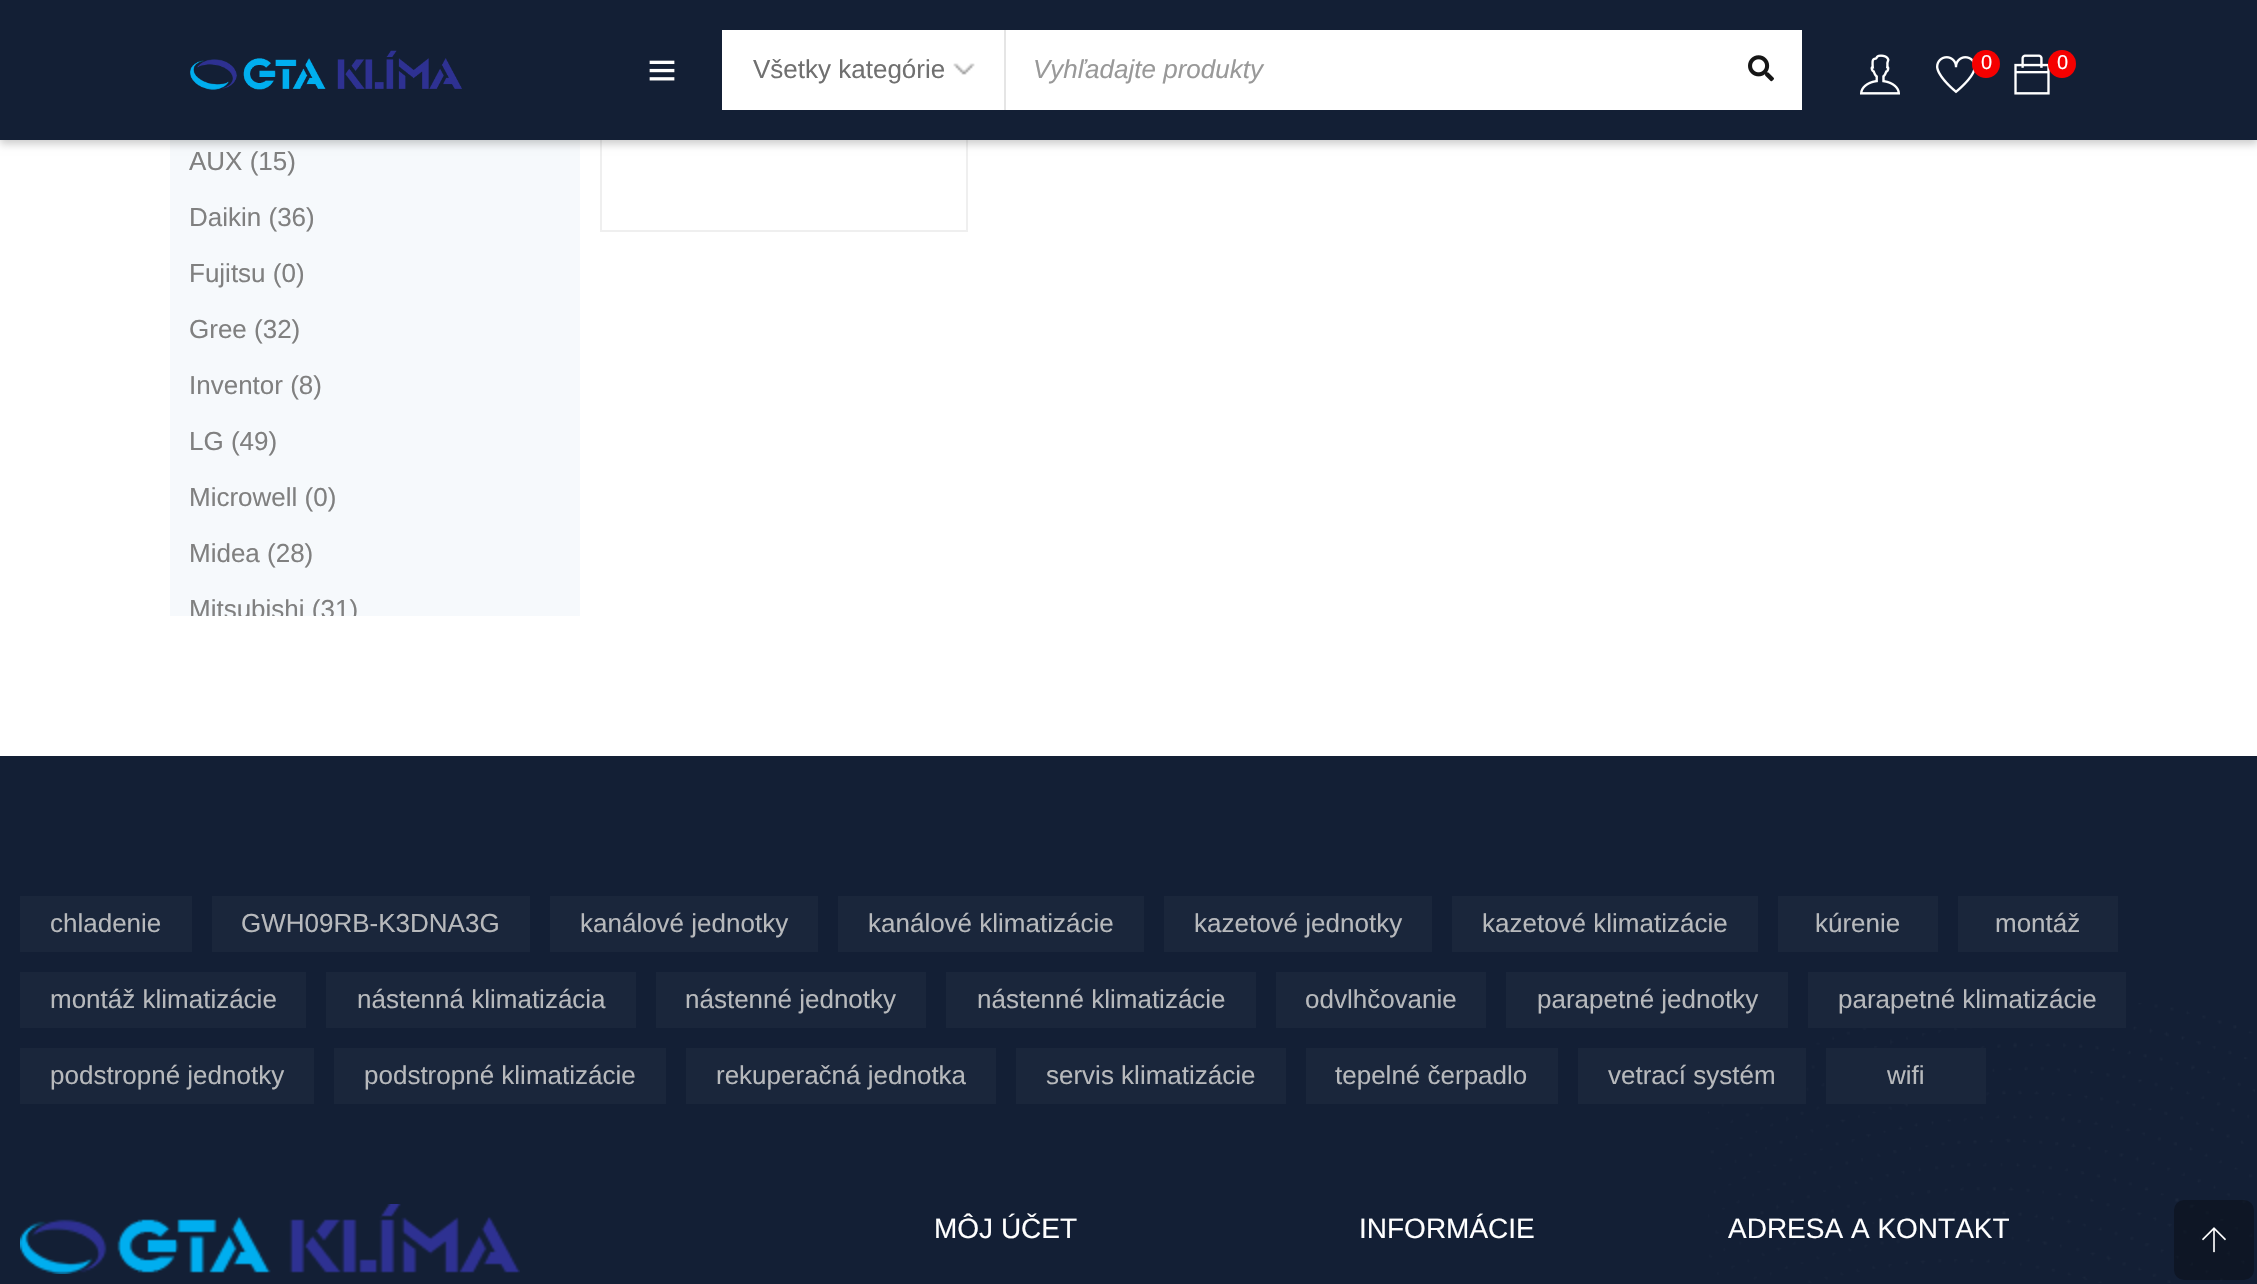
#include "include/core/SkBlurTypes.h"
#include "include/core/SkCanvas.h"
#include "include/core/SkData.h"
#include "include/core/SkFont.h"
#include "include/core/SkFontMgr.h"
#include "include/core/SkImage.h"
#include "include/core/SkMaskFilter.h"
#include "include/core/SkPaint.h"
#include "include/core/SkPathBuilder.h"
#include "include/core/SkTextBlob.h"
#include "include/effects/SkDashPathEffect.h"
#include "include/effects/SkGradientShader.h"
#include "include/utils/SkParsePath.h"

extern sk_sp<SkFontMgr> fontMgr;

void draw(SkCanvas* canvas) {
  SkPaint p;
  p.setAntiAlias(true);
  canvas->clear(SK_ColorWHITE);
  p.setColor(SkColorSetRGB(246, 249, 252));
  canvas->drawRect(SkRect::MakeLTRB(170, 140, 580, 616), p);
  p.setColor(SkColorSetRGB(239, 239, 239));
  canvas->drawRect(SkRect::MakeLTRB(600, 140, 602, 232), p);
  canvas->drawRect(SkRect::MakeLTRB(966, 140, 968, 232), p);
  p.setColor(SkColorSetARGB(51, 0, 0, 0));
  p.setMaskFilter(SkMaskFilter::MakeBlur(kNormal_SkBlurStyle, 4));
  canvas->drawRect(SkRect::MakeLTRB(0, 4, 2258, 144), p);
  p.setMaskFilter(nullptr);
  p.setColor(SkColorSetRGB(19, 31, 53));
  canvas->drawRect(SkRect::MakeLTRB(0, 0, 2257, 140), p);
  canvas->drawImageRect(SkImages::DeferredFromEncodedData(SkData::MakeFromFileName("images/1.png")), SkRect::MakeLTRB(190, 50, 462, 90), SkSamplingOptions());
  canvas->drawImageRect(SkImages::DeferredFromEncodedData(SkData::MakeFromFileName("images/2.png")), SkRect::MakeLTRB(649, 60, 675, 81), SkSamplingOptions());
  p.setColor(SK_ColorWHITE);
  canvas->drawRect(SkRect::MakeLTRB(722, 30, 1802, 110), p);
  canvas->drawImageRect(SkImages::DeferredFromEncodedData(SkData::MakeFromFileName("images/3.png")), SkRect::MakeLTRB(953, 63, 975, 75), SkSamplingOptions());
  p.setColor(SkColorSetRGB(229, 229, 229));
  canvas->drawRect(SkRect::MakeLTRB(1004, 30, 1006, 110), p);
  canvas->drawImageRect(SkImages::DeferredFromEncodedData(SkData::MakeFromFileName("images/4.png")), SkRect::MakeLTRB(1748, 55, 1774, 82), SkSamplingOptions());
  canvas->drawImageRect(SkImages::DeferredFromEncodedData(SkData::MakeFromFileName("images/5.png")), SkRect::MakeLTRB(1860, 54, 1900, 95), SkSamplingOptions());
  canvas->drawImageRect(SkImages::DeferredFromEncodedData(SkData::MakeFromFileName("images/6.png")), SkRect::MakeLTRB(1936, 56, 1975, 94), SkSamplingOptions());
  p.setColor(SkColorSetRGB(245, 0, 0));
  canvas->drawCircle(1986, 64, 14, p);
  canvas->drawImageRect(SkImages::DeferredFromEncodedData(SkData::MakeFromFileName("images/7.png")), SkRect::MakeLTRB(2014, 54, 2050, 95), SkSamplingOptions());
  canvas->drawCircle(2062, 64, 14, p);
  p.setColor(SkColorSetRGB(239, 239, 239));
  canvas->drawRect(SkRect::MakeLTRB(602, 230, 968, 232), p);
  p.setColor(SkColorSetRGB(19, 31, 53));
  canvas->drawRect(SkRect::MakeLTRB(0, 756, 2257, 1284), p);
  canvas->drawImageRect(SkImages::DeferredFromEncodedData(SkData::MakeFromFileName("images/8.png")), SkRect::MakeLTRB(1708, 1003, 2255, 1283), SkSamplingOptions());
  p.setColor(SkColorSetRGB(26, 38, 59));
  canvas->drawRect(SkRect::MakeLTRB(20, 896, 192, 952), p);
  canvas->drawRect(SkRect::MakeLTRB(212, 896, 530, 952), p);
  canvas->drawRect(SkRect::MakeLTRB(550, 896, 818, 952), p);
  canvas->drawRect(SkRect::MakeLTRB(838, 896, 1144, 952), p);
  canvas->drawRect(SkRect::MakeLTRB(1164, 896, 1432, 952), p);
  canvas->drawRect(SkRect::MakeLTRB(1452, 896, 1758, 952), p);
  canvas->drawRect(SkRect::MakeLTRB(1778, 896, 1938, 952), p);
  canvas->drawRect(SkRect::MakeLTRB(1958, 896, 2118, 952), p);
  canvas->drawRect(SkRect::MakeLTRB(20, 972, 306, 1028), p);
  canvas->drawRect(SkRect::MakeLTRB(326, 972, 636, 1028), p);
  canvas->drawRect(SkRect::MakeLTRB(656, 972, 926, 1028), p);
  canvas->drawRect(SkRect::MakeLTRB(946, 972, 1256, 1028), p);
  canvas->drawRect(SkRect::MakeLTRB(1276, 972, 1486, 1028), p);
  canvas->drawRect(SkRect::MakeLTRB(1506, 972, 1788, 1028), p);
  canvas->drawRect(SkRect::MakeLTRB(1808, 972, 2126, 1028), p);
  canvas->drawRect(SkRect::MakeLTRB(20, 1048, 314, 1104), p);
  canvas->drawRect(SkRect::MakeLTRB(334, 1048, 666, 1104), p);
  canvas->drawRect(SkRect::MakeLTRB(686, 1048, 996, 1104), p);
  canvas->drawRect(SkRect::MakeLTRB(1016, 1048, 1286, 1104), p);
  canvas->drawRect(SkRect::MakeLTRB(1306, 1048, 1558, 1104), p);
  canvas->drawRect(SkRect::MakeLTRB(1578, 1048, 1806, 1104), p);
  canvas->drawRect(SkRect::MakeLTRB(1826, 1048, 1986, 1104), p);
  canvas->drawImageRect(SkImages::DeferredFromEncodedData(SkData::MakeFromFileName("images/9.png")), SkRect::MakeLTRB(20, 1204, 520, 1274), SkSamplingOptions());
  p.setColor(SkColorSetARGB(77, 0, 0, 0));
  canvas->drawRoundRect(SkRect::MakeLTRB(2174, 1200, 2254, 1280), 10, 10, p);
  canvas->drawImageRect(SkImages::DeferredFromEncodedData(SkData::MakeFromFileName("images/10.png")), SkRect::MakeLTRB(2202, 1227, 2226, 1253), SkSamplingOptions());
  SkFont font1(fontMgr->matchFamilyStyle("Liberation Sans", SkFontStyle::Normal()), 26);
  font1.setSubpixel(true);
  p.setColor(SkColorSetRGB(112, 112, 112));
  canvas->drawString("Všetky kategórie", 753, 78, font1, p);
  SkFont font2(fontMgr->matchFamilyStyle("Liberation Sans", SkFontStyle::Italic()), 26);
  font2.setSubpixel(true);
  p.setColor(SkColorSetRGB(153, 153, 153));
  canvas->drawString("Vyhľadajte produkty", 1033, 78, font2, p);
  SkFont font3(fontMgr->matchFamilyStyle("Liberation Sans", SkFontStyle::Normal()), 20);
  font3.setSubpixel(true);
  p.setColor(SK_ColorWHITE);
  canvas->drawString("0", 1981, 69, font3, p);
  canvas->drawString("0", 2057, 69, font3, p);
  p.setColor(SkColorSetRGB(128, 128, 128));
  canvas->drawString("AUX (15)", 189, 170, font1, p);
  canvas->drawString("Daikin (36)", 189, 226, font1, p);
  canvas->drawString("Fujitsu (0)", 189, 282, font1, p);
  canvas->drawString("Gree (32)", 189, 338, font1, p);
  canvas->drawString("Inventor (8)", 189, 394, font1, p);
  canvas->drawString("LG (49)", 189, 450, font1, p);
  canvas->drawString("Microwell (0)", 189, 506, font1, p);
  canvas->drawString("Midea (28)", 189, 562, font1, p);
  canvas->save();
  canvas->clipRect(SkRect::MakeLTRB(190, 140, 560, 616));
  canvas->drawString("Mitsubishi (31)", 189, 618, font1, p);
  canvas->restore();
  p.setColor(SkColorSetRGB(183, 185, 188));
  canvas->drawString("chladenie", 50, 932, font1, p);
  canvas->drawString("GWH09RB-K3DNA3G", 241, 932, font1, p);
  canvas->drawString("kanálové jednotky", 580, 932, font1, p);
  canvas->drawString("kanálové klimatizácie", 868, 932, font1, p);
  canvas->drawString("kazetové jednotky", 1194, 932, font1, p);
  canvas->drawString("kazetové klimatizácie", 1482, 932, font1, p);
  canvas->drawString("kúrenie", 1815, 932, font1, p);
  canvas->drawString("montáž", 1995, 932, font1, p);
  canvas->drawString("montáž klimatizácie", 50, 1008, font1, p);
  canvas->drawString("nástenná klimatizácia", 357, 1008, font1, p);
  canvas->drawString("nástenné jednotky", 685, 1008, font1, p);
  canvas->drawString("nástenné klimatizácie", 977, 1008, font1, p);
  canvas->drawString("odvlhčovanie", 1305, 1008, font1, p);
  canvas->drawString("parapetné jednotky", 1537, 1008, font1, p);
  canvas->drawString("parapetné klimatizácie", 1838, 1008, font1, p);
  canvas->drawString("podstropné jednotky", 50, 1084, font1, p);
  canvas->drawString("podstropné klimatizácie", 364, 1084, font1, p);
  canvas->drawString("rekuperačná jednotka", 716, 1084, font1, p);
  canvas->drawString("servis klimatizácie", 1046, 1084, font1, p);
  canvas->drawString("tepelné čerpadlo", 1335, 1084, font1, p);
  canvas->drawString("vetrací systém", 1608, 1084, font1, p);
  canvas->drawString("wifi", 1887, 1084, font1, p);
  SkFont font4(fontMgr->matchFamilyStyle("Liberation Sans", SkFontStyle::Normal()), 28);
  font4.setSubpixel(true);
  p.setColor(SK_ColorWHITE);
  canvas->drawString("MÔJ ÚČET", 934, 1238, font4, p);
  canvas->drawString("INFORMÁCIE", 1359, 1238, font4, p);
  canvas->drawString("ADRESA A KONTAKT", 1728, 1238, font4, p);
}
